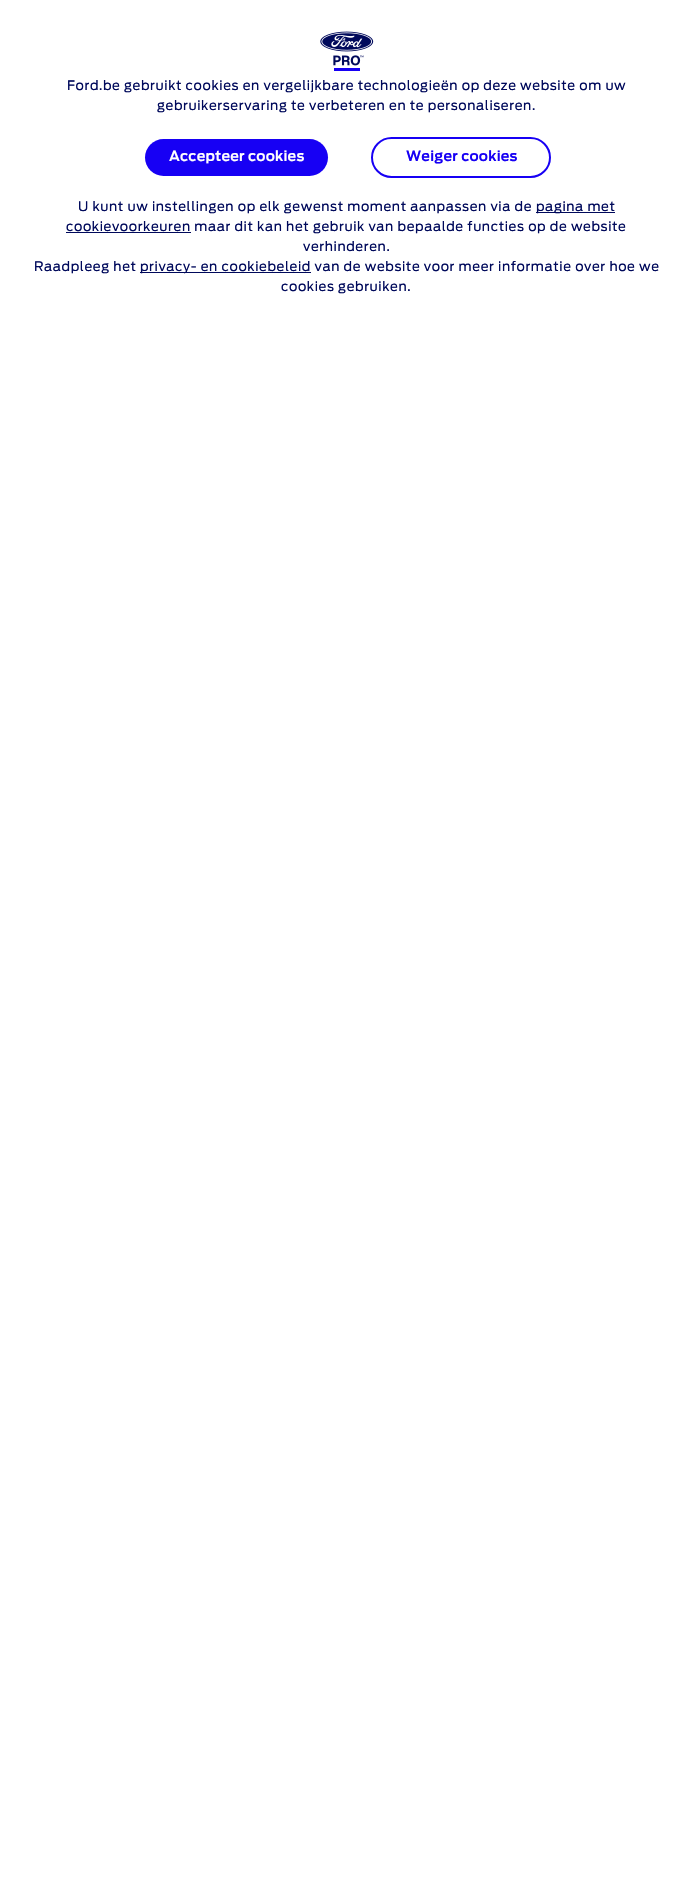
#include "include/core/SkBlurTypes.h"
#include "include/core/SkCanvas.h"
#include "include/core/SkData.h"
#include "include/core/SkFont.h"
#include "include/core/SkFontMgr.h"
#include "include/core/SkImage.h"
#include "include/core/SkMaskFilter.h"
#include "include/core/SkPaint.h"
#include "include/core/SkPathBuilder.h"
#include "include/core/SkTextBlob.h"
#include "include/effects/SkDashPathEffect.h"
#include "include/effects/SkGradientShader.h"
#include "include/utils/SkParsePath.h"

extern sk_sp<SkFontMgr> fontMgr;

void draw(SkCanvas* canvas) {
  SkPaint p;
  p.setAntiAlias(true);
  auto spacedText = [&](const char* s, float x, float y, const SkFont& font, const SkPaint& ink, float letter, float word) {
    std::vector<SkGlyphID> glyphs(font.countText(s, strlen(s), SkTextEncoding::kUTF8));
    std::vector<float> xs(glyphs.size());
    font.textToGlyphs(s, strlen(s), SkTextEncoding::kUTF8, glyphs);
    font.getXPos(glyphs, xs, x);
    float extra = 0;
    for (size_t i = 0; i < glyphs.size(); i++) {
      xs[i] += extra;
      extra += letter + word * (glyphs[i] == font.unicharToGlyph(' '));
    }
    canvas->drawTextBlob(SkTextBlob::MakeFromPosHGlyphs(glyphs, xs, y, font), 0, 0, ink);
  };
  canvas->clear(SK_ColorWHITE);
  canvas->drawImageRect(SkImages::DeferredFromEncodedData(SkData::MakeFromFileName("images/1.png")), SkRect::MakeLTRB(320, 31, 374, 71), SkSamplingOptions());
  p.setColor(SkColorSetRGB(23, 0, 244));
  canvas->drawRoundRect(SkRect::MakeLTRB(145, 139, 328, 176), 18.5f, 18.5f, p);
  p.setStyle(SkPaint::kStroke_Style);
  p.setStrokeWidth(2);
  canvas->drawRoundRect(SkRect::MakeLTRB(372, 138, 550, 177), 19.5f, 19.5f, p);
  p.setStyle(SkPaint::kFill_Style);
  p.setColor(SkColorSetRGB(0, 9, 91));
  canvas->drawRect(SkRect::MakeLTRB(536, 212, 615, 213), p);
  canvas->drawRect(SkRect::MakeLTRB(66, 232, 191, 233), p);
  canvas->drawRect(SkRect::MakeLTRB(140, 272, 311, 273), p);
  SkFont font1(fontMgr->matchFamilyStyle("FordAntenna", SkFontStyle::Normal()), 13);
  font1.setSubpixel(true);
  spacedText("Ford.be gebruikt cookies en vergelijkbare technologieën op deze website om uw", 67, 90, font1, p, 0.6f, 0);
  spacedText("gebruikerservaring te verbeteren en te personaliseren.", 157, 110, font1, p, 0.6f, 0);
  SkFont font2(fontMgr->matchFamilyStyle("FordAntenna", SkFontStyle(600, SkFontStyle::kNormal_Width, SkFontStyle::kUpright_Slant)), 14);
  font2.setSubpixel(true);
  p.setColor(SK_ColorWHITE);
  spacedText("Accepteer cookies", 169, 161, font2, p, 0.2f, 0);
  p.setColor(SkColorSetRGB(23, 0, 244));
  spacedText("Weiger cookies", 406, 161, font2, p, 0.2f, 0);
  p.setColor(SkColorSetRGB(0, 9, 91));
  spacedText("U kunt uw instellingen op elk gewenst moment aanpassen via de", 78, 211, font1, p, 0.6f, 0);
  spacedText("pagina met", 536, 211, font1, p, 0.6f, 0);
  spacedText("cookievoorkeuren maar dit kan het gebruik van bepaalde functies op de website", 66, 231, font1, p, 0.6f, 0);
  spacedText("verhinderen.", 303, 251, font1, p, 0.6f, 0);
  spacedText("Raadpleeg het", 34, 271, font1, p, 0.6f, 0);
  spacedText("privacy- en cookiebeleid van de website voor meer informatie over hoe we", 140, 271, font1, p, 0.6f, 0);
  spacedText("cookies gebruiken.", 281, 291, font1, p, 0.6f, 0);
}
